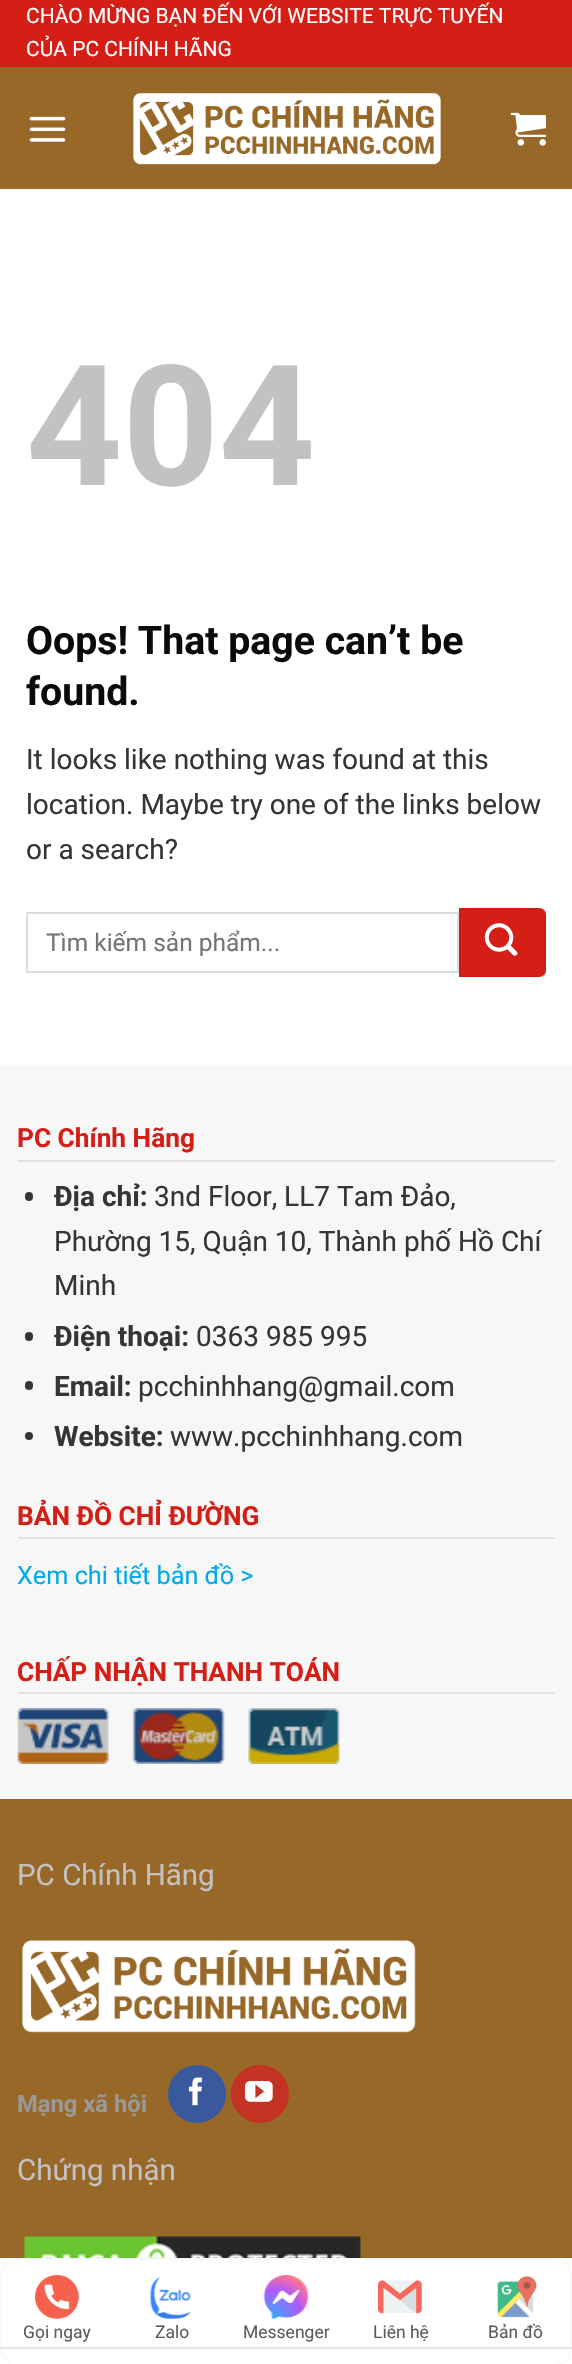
#include "include/core/SkBlurTypes.h"
#include "include/core/SkCanvas.h"
#include "include/core/SkData.h"
#include "include/core/SkFont.h"
#include "include/core/SkFontMgr.h"
#include "include/core/SkImage.h"
#include "include/core/SkMaskFilter.h"
#include "include/core/SkPaint.h"
#include "include/core/SkPathBuilder.h"
#include "include/core/SkTextBlob.h"
#include "include/effects/SkDashPathEffect.h"
#include "include/effects/SkGradientShader.h"
#include "include/utils/SkParsePath.h"

extern sk_sp<SkFontMgr> fontMgr;

void draw(SkCanvas* canvas) {
  SkPaint p;
  p.setAntiAlias(true);
  canvas->clear(SK_ColorWHITE);
  p.setColor(SkColorSetRGB(213, 30, 22));
  canvas->drawRect(SkRect::MakeLTRB(0, 0, 572, 67), p);
  p.setColor(SkColorSetRGB(152, 104, 40));
  canvas->drawRect(SkRect::MakeLTRB(0, 67, 572, 189), p);
  canvas->drawImageRect(SkImages::DeferredFromEncodedData(SkData::MakeFromFileName("images/1.png")), SkRect::MakeLTRB(29, 116, 66, 142), SkSamplingOptions());
  canvas->drawImageRect(SkImages::DeferredFromEncodedData(SkData::MakeFromFileName("images/2.png")), SkRect::MakeLTRB(133, 93, 441, 165), SkSamplingOptions());
  canvas->drawImageRect(SkImages::DeferredFromEncodedData(SkData::MakeFromFileName("images/3.png")), SkRect::MakeLTRB(511, 112, 546, 146), SkSamplingOptions());
  p.setStyle(SkPaint::kStroke_Style);
  p.setStrokeWidth(2);
  p.setColor(SkColorSetRGB(221, 221, 221));
  canvas->drawRect(SkRect::MakeLTRB(27, 913, 458, 972), p);
  p.setStyle(SkPaint::kFill_Style);
  p.setColor(SkColorSetRGB(213, 31, 22));
  canvas->drawPath(SkPathBuilder().moveTo(459, 908).lineTo(539, 908).cubicTo(543, 908, 546, 911, 546, 915).lineTo(546, 970).cubicTo(546, 974, 543, 977, 539, 977).lineTo(459, 977).close().detach(), p);
  p.setStyle(SkPaint::kStroke_Style);
  p.setColor(SkColorSetARGB(13, 0, 0, 0));
  canvas->drawRect(SkRect::MakeLTRB(460, 909, 545, 976), p);
  canvas->drawImageRect(SkImages::DeferredFromEncodedData(SkData::MakeFromFileName("images/4.png")), SkRect::MakeLTRB(484, 923, 518, 956), SkSamplingOptions());
  p.setStyle(SkPaint::kFill_Style);
  p.setColor(SkColorSetRGB(247, 247, 247));
  canvas->drawRect(SkRect::MakeLTRB(0, 1066, 572, 1799), p);
  p.setColor(SkColorSetRGB(226, 226, 226));
  canvas->drawRect(SkRect::MakeLTRB(18, 1160, 555, 1162), p);
  p.setColor(SkColorSetRGB(53, 53, 53));
  canvas->drawRoundRect(SkRect::MakeLTRB(25, 1192, 33, 1201), 4, 4, p);
  canvas->drawRoundRect(SkRect::MakeLTRB(25, 1332, 33, 1341), 4, 4, p);
  canvas->drawRoundRect(SkRect::MakeLTRB(25, 1381, 33, 1390), 4, 4, p);
  canvas->drawCircle(29, 1436, 4, p);
  p.setColor(SkColorSetRGB(226, 226, 226));
  canvas->drawRect(SkRect::MakeLTRB(18, 1537, 555, 1539), p);
  canvas->drawRect(SkRect::MakeLTRB(18, 1692, 555, 1694), p);
  canvas->drawImageRect(SkImages::DeferredFromEncodedData(SkData::MakeFromFileName("images/5.png")), SkRect::MakeLTRB(17, 1708, 340, 1764), SkSamplingOptions());
  p.setColor(SkColorSetRGB(152, 104, 40));
  canvas->drawRect(SkRect::MakeLTRB(0, 1799, 572, 2258), p);
  canvas->drawImageRect(SkImages::DeferredFromEncodedData(SkData::MakeFromFileName("images/6.png")), SkRect::MakeLTRB(22, 1940, 416, 2033), SkSamplingOptions());
  p.setColor(SkColorSetRGB(58, 88, 157));
  canvas->drawCircle(197, 2094, 28, p);
  p.setStyle(SkPaint::kStroke_Style);
  canvas->drawCircle(197, 2094, 28, p);
  canvas->drawImageRect(SkImages::DeferredFromEncodedData(SkData::MakeFromFileName("images/7.png")), SkRect::MakeLTRB(188, 2077, 202, 2106), SkSamplingOptions());
  p.setStyle(SkPaint::kFill_Style);
  p.setColor(SkColorSetRGB(195, 50, 35));
  canvas->drawCircle(260, 2094, 28, p);
  p.setStyle(SkPaint::kStroke_Style);
  canvas->drawCircle(260, 2094, 28, p);
  canvas->drawImageRect(SkImages::DeferredFromEncodedData(SkData::MakeFromFileName("images/8.png")), SkRect::MakeLTRB(245, 2081, 273, 2102), SkSamplingOptions());
  canvas->drawImageRect(SkImages::DeferredFromEncodedData(SkData::MakeFromFileName("images/9.png")), SkRect::MakeLTRB(24, 2236, 361, 2258), SkSamplingOptions());
  p.setColor(SkColorSetRGB(247, 249, 250));
  canvas->drawRoundRect(SkRect::MakeLTRB(1, 2259, 571, 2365), 17, 17, p);
  p.setStyle(SkPaint::kFill_Style);
  p.setColor(SkColorSetARGB(204, 221, 221, 221));
  canvas->drawRect(SkRect::MakeLTRB(0, 2347, 572, 2349), p);
  canvas->drawImageRect(SkImages::DeferredFromEncodedData(SkData::MakeFromFileName("images/10.png")), SkRect::MakeLTRB(35, 2275, 79, 2319), SkSamplingOptions());
  canvas->drawImageRect(SkImages::DeferredFromEncodedData(SkData::MakeFromFileName("images/11.png")), SkRect::MakeLTRB(149, 2276, 191, 2319), SkSamplingOptions());
  canvas->drawImageRect(SkImages::DeferredFromEncodedData(SkData::MakeFromFileName("images/12.png")), SkRect::MakeLTRB(263, 2275, 309, 2319), SkSamplingOptions());
  canvas->drawImageRect(SkImages::DeferredFromEncodedData(SkData::MakeFromFileName("images/13.png")), SkRect::MakeLTRB(378, 2280, 422, 2314), SkSamplingOptions());
  canvas->drawImageRect(SkImages::DeferredFromEncodedData(SkData::MakeFromFileName("images/14.png")), SkRect::MakeLTRB(497, 2276, 537, 2318), SkSamplingOptions());
  SkFont font1(fontMgr->matchFamilyStyle("Roboto", SkFontStyle::Normal()), 21);
  font1.setSubpixel(true);
  p.setColor(SK_ColorWHITE);
  canvas->drawString("CHÀO MỪNG BẠN ĐẾN VỚI WEBSITE TRỰC TUYẾN", 26, 23, font1, p);
  canvas->drawString("CỦA PC CHÍNH HÃNG", 26, 56, font1, p);
  SkFont font2(fontMgr->matchFamilyStyle("Roboto", SkFontStyle::Bold()), 168);
  font2.setSubpixel(true);
  p.setColor(SkColorSetRGB(194, 194, 194));
  canvas->drawString("404", 26, 485, font2, p);
  SkFont font3(fontMgr->matchFamilyStyle("Roboto", SkFontStyle::Bold()), 39.25f);
  font3.setSubpixel(true);
  p.setColor(SkColorSetRGB(10, 10, 10));
  canvas->drawString("Oops! That page can’t be", 26, 654, font3, p);
  canvas->drawString("found.", 26, 705, font3, p);
  SkFont font4(fontMgr->matchFamilyStyle("Roboto", SkFontStyle::Normal()), 28);
  font4.setSubpixel(true);
  p.setColor(SkColorSetRGB(53, 53, 53));
  canvas->drawString("It looks like nothing was found at this", 26, 769, font4, p);
  canvas->drawString("location. Maybe try one of the links below", 26, 814, font4, p);
  canvas->drawString("or a search?", 26, 859, font4, p);
  SkFont font5(fontMgr->matchFamilyStyle("Roboto", SkFontStyle::Normal()), 24.5f);
  font5.setSubpixel(true);
  p.setColor(SkColorSetRGB(117, 117, 117));
  canvas->drawString("Tìm kiếm sản phẩm...", 46, 951, font5, p);
  SkFont font6(fontMgr->matchFamilyStyle("Roboto", SkFontStyle::Bold()), 26.25f);
  font6.setSubpixel(true);
  p.setColor(SkColorSetRGB(213, 30, 22));
  canvas->drawString("PC Chính Hãng", 17, 1147, font6, p);
  SkFont font7(fontMgr->matchFamilyStyle("Roboto", SkFontStyle::Bold()), 28);
  font7.setSubpixel(true);
  p.setColor(SkColorSetRGB(53, 53, 53));
  canvas->drawString("Địa chỉ:", 54, 1206, font7, p);
  canvas->drawString("3nd Floor, LL7 Tam Đảo,", 154, 1206, font4, p);
  canvas->drawString("Phường 15, Quận 10, Thành phố Hồ Chí", 54, 1251, font4, p);
  canvas->drawString("Minh", 54, 1295, font4, p);
  canvas->drawString("Điện thoại:", 54, 1346, font7, p);
  canvas->drawString("0363 985 995", 196, 1346, font4, p);
  canvas->drawString("Email:", 54, 1396, font7, p);
  canvas->drawString("pcchinhhang@gmail.com", 138, 1396, font4, p);
  canvas->drawString("Website:", 54, 1446, font7, p);
  canvas->drawString("www.pcchinhhang.com", 170, 1446, font4, p);
  p.setColor(SkColorSetRGB(213, 30, 22));
  canvas->drawString("BẢN ĐỒ CHỈ ĐƯỜNG", 17, 1525, font6, p);
  SkFont font8(fontMgr->matchFamilyStyle("Roboto", SkFontStyle::Normal()), 25.25f);
  font8.setSubpixel(true);
  p.setColor(SkColorSetRGB(0, 170, 231));
  canvas->drawString("Xem chi tiết bản đồ >", 17, 1584, font8, p);
  p.setColor(SkColorSetRGB(213, 30, 22));
  canvas->drawString("CHẤP NHẬN THANH TOÁN", 17, 1681, font6, p);
  SkFont font9(fontMgr->matchFamilyStyle("Roboto", SkFontStyle::Normal()), 29.5f);
  font9.setSubpixel(true);
  p.setColor(SkColorSetRGB(194, 194, 194));
  canvas->drawString("PC Chính Hãng", 17, 1885, font9, p);
  SkFont font10(fontMgr->matchFamilyStyle("Roboto", SkFontStyle::Bold()), 23.75f);
  font10.setSubpixel(true);
  p.setColor(SkColorSetRGB(153, 153, 153));
  canvas->drawString("Mạng xã hội", 17, 2112, font10, p);
  p.setColor(SkColorSetRGB(194, 194, 194));
  canvas->drawString("Chứng nhận", 17, 2180, font9, p);
  SkFont font11(fontMgr->matchFamilyStyle("Roboto", SkFontStyle::Normal()), 17.5f);
  font11.setSubpixel(true);
  p.setColor(SkColorSetRGB(92, 92, 92));
  canvas->drawString("Gọi ngay", 23, 2338, font11, p);
  canvas->drawString("Zalo", 155, 2338, font11, p);
  canvas->drawString("Messenger", 243, 2338, font11, p);
  canvas->drawString("Liên hệ", 373, 2338, font11, p);
  canvas->drawString("Bản đồ", 488, 2338, font11, p);
}
